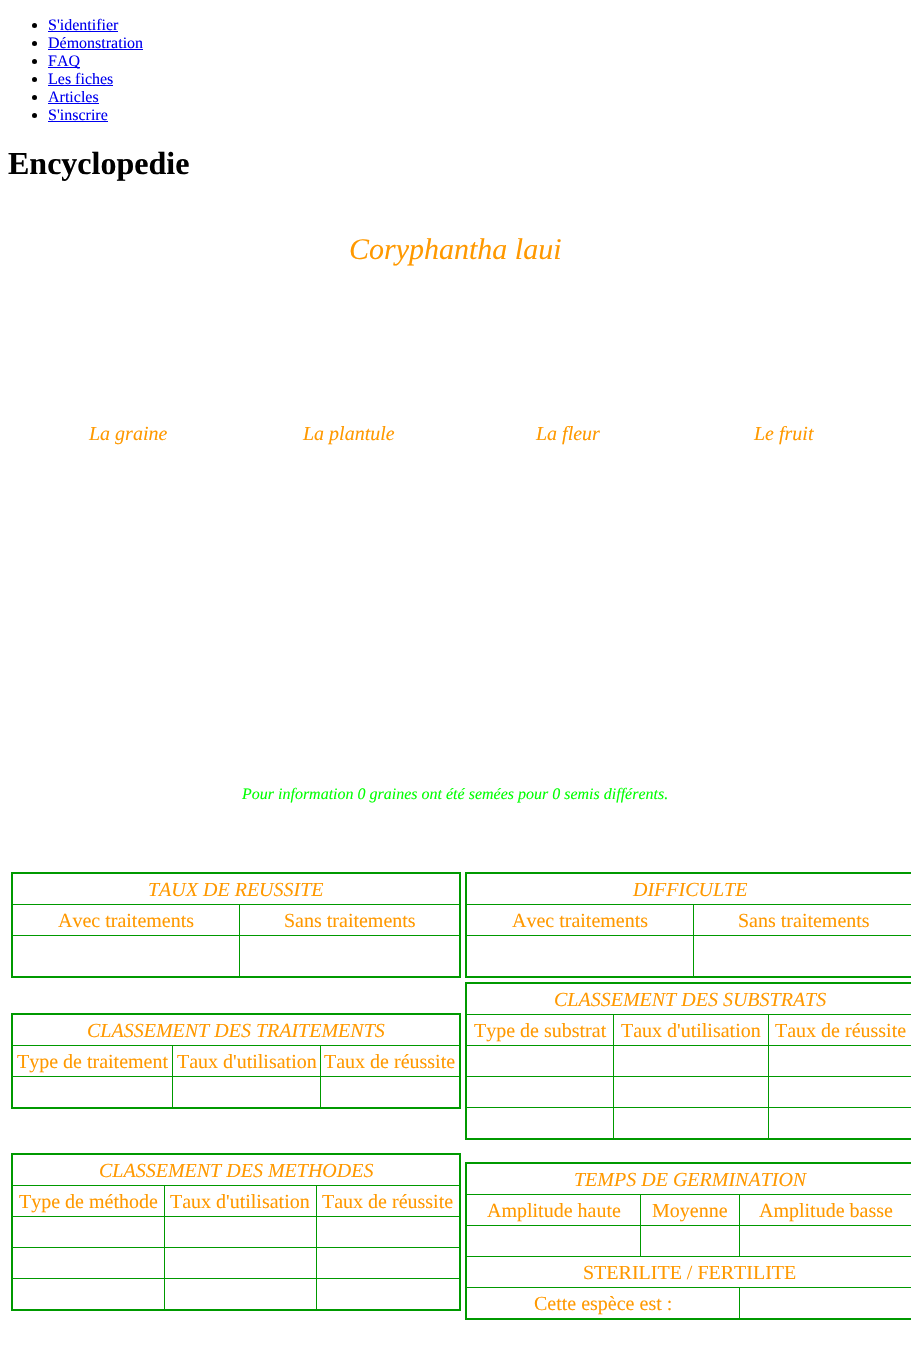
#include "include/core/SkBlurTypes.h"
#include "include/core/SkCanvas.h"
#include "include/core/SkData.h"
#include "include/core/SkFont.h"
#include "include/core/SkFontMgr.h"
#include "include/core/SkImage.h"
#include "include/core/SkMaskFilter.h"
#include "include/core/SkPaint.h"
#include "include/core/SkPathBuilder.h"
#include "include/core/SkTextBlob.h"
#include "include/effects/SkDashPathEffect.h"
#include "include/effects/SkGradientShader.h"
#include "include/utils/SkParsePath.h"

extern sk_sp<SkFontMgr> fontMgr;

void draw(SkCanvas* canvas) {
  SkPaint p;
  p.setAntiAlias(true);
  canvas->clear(SK_ColorWHITE);
  p.setColor(SK_ColorBLACK);
  canvas->drawCircle(34.5f, 25.5f, 2.5f, p);
  p.setColor(SkColorSetRGB(0, 0, 238));
  canvas->drawRect(SkRect::MakeLTRB(48, 31, 118, 32), p);
  p.setColor(SK_ColorBLACK);
  canvas->drawCircle(34.5f, 43.5f, 2.5f, p);
  p.setColor(SkColorSetRGB(0, 0, 238));
  canvas->drawRect(SkRect::MakeLTRB(48, 49, 143, 50), p);
  p.setColor(SK_ColorBLACK);
  canvas->drawCircle(34.5f, 61.5f, 2.5f, p);
  p.setColor(SkColorSetRGB(0, 0, 238));
  canvas->drawRect(SkRect::MakeLTRB(48, 67, 80, 68), p);
  p.setColor(SK_ColorBLACK);
  canvas->drawCircle(34.5f, 79.5f, 2.5f, p);
  p.setColor(SkColorSetRGB(0, 0, 238));
  canvas->drawRect(SkRect::MakeLTRB(48, 85, 113, 86), p);
  p.setColor(SK_ColorBLACK);
  canvas->drawCircle(34.5f, 97.5f, 2.5f, p);
  p.setColor(SkColorSetRGB(0, 0, 238));
  canvas->drawRect(SkRect::MakeLTRB(48, 103, 99, 104), p);
  p.setColor(SK_ColorBLACK);
  canvas->drawCircle(34.5f, 115.5f, 2.5f, p);
  p.setColor(SkColorSetRGB(0, 0, 238));
  canvas->drawRect(SkRect::MakeLTRB(48, 121, 108, 122), p);
  p.setColor(SkColorSetRGB(0, 153, 0));
  canvas->drawRect(SkRect::MakeLTRB(11, 872, 461, 874), p);
  canvas->drawRect(SkRect::MakeLTRB(239, 904, 461, 905), p);
  canvas->drawRect(SkRect::MakeLTRB(239, 935, 461, 936), p);
  canvas->drawRect(SkRect::MakeLTRB(459, 872, 461, 978), p);
  canvas->drawRect(SkRect::MakeLTRB(239, 935, 240, 978), p);
  canvas->drawRect(SkRect::MakeLTRB(11, 976, 461, 978), p);
  canvas->drawRect(SkRect::MakeLTRB(12, 935, 240, 936), p);
  canvas->drawRect(SkRect::MakeLTRB(239, 904, 240, 936), p);
  canvas->drawRect(SkRect::MakeLTRB(12, 904, 240, 905), p);
  canvas->drawRect(SkRect::MakeLTRB(11, 872, 13, 978), p);
  canvas->drawRect(SkRect::MakeLTRB(465, 872, 911, 874), p);
  canvas->drawRect(SkRect::MakeLTRB(693, 935, 911, 936), p);
  canvas->drawRect(SkRect::MakeLTRB(693, 935, 694, 978), p);
  canvas->drawRect(SkRect::MakeLTRB(465, 976, 911, 978), p);
  canvas->drawRect(SkRect::MakeLTRB(693, 904, 911, 905), p);
  canvas->drawRect(SkRect::MakeLTRB(466, 935, 694, 936), p);
  canvas->drawRect(SkRect::MakeLTRB(693, 904, 694, 936), p);
  canvas->drawRect(SkRect::MakeLTRB(466, 904, 694, 905), p);
  canvas->drawRect(SkRect::MakeLTRB(465, 872, 467, 978), p);
  canvas->drawRect(SkRect::MakeLTRB(465, 982, 911, 984), p);
  canvas->drawRect(SkRect::MakeLTRB(768, 1107, 911, 1108), p);
  canvas->drawRect(SkRect::MakeLTRB(768, 1107, 769, 1140), p);
  canvas->drawRect(SkRect::MakeLTRB(613, 1107, 769, 1108), p);
  canvas->drawRect(SkRect::MakeLTRB(613, 1107, 614, 1140), p);
  canvas->drawRect(SkRect::MakeLTRB(465, 1138, 911, 1140), p);
  canvas->drawRect(SkRect::MakeLTRB(768, 1014, 911, 1015), p);
  canvas->drawRect(SkRect::MakeLTRB(768, 1045, 911, 1046), p);
  canvas->drawRect(SkRect::MakeLTRB(768, 1076, 911, 1077), p);
  canvas->drawRect(SkRect::MakeLTRB(768, 1076, 769, 1108), p);
  canvas->drawRect(SkRect::MakeLTRB(613, 1076, 769, 1077), p);
  canvas->drawRect(SkRect::MakeLTRB(768, 1045, 769, 1077), p);
  canvas->drawRect(SkRect::MakeLTRB(613, 1045, 769, 1046), p);
  canvas->drawRect(SkRect::MakeLTRB(768, 1014, 769, 1046), p);
  canvas->drawRect(SkRect::MakeLTRB(613, 1014, 769, 1015), p);
  canvas->drawRect(SkRect::MakeLTRB(466, 1107, 614, 1108), p);
  canvas->drawRect(SkRect::MakeLTRB(613, 1076, 614, 1108), p);
  canvas->drawRect(SkRect::MakeLTRB(466, 1076, 614, 1077), p);
  canvas->drawRect(SkRect::MakeLTRB(613, 1045, 614, 1077), p);
  canvas->drawRect(SkRect::MakeLTRB(466, 1045, 614, 1046), p);
  canvas->drawRect(SkRect::MakeLTRB(613, 1014, 614, 1046), p);
  canvas->drawRect(SkRect::MakeLTRB(466, 1014, 614, 1015), p);
  canvas->drawRect(SkRect::MakeLTRB(465, 982, 467, 1140), p);
  canvas->drawRect(SkRect::MakeLTRB(11, 1013, 461, 1015), p);
  canvas->drawRect(SkRect::MakeLTRB(320, 1045, 461, 1046), p);
  canvas->drawRect(SkRect::MakeLTRB(320, 1076, 461, 1077), p);
  canvas->drawRect(SkRect::MakeLTRB(459, 1013, 461, 1109), p);
  canvas->drawRect(SkRect::MakeLTRB(320, 1076, 321, 1109), p);
  canvas->drawRect(SkRect::MakeLTRB(172, 1076, 321, 1077), p);
  canvas->drawRect(SkRect::MakeLTRB(172, 1076, 173, 1109), p);
  canvas->drawRect(SkRect::MakeLTRB(11, 1107, 461, 1109), p);
  canvas->drawRect(SkRect::MakeLTRB(320, 1045, 321, 1077), p);
  canvas->drawRect(SkRect::MakeLTRB(172, 1045, 321, 1046), p);
  canvas->drawRect(SkRect::MakeLTRB(12, 1076, 173, 1077), p);
  canvas->drawRect(SkRect::MakeLTRB(172, 1045, 173, 1077), p);
  canvas->drawRect(SkRect::MakeLTRB(12, 1045, 173, 1046), p);
  canvas->drawRect(SkRect::MakeLTRB(11, 1013, 13, 1109), p);
  canvas->drawRect(SkRect::MakeLTRB(11, 1153, 461, 1155), p);
  canvas->drawRect(SkRect::MakeLTRB(316, 1185, 461, 1186), p);
  canvas->drawRect(SkRect::MakeLTRB(316, 1216, 461, 1217), p);
  canvas->drawRect(SkRect::MakeLTRB(316, 1247, 461, 1248), p);
  canvas->drawRect(SkRect::MakeLTRB(316, 1278, 461, 1279), p);
  canvas->drawRect(SkRect::MakeLTRB(459, 1153, 461, 1311), p);
  canvas->drawRect(SkRect::MakeLTRB(316, 1278, 317, 1311), p);
  canvas->drawRect(SkRect::MakeLTRB(164, 1278, 317, 1279), p);
  canvas->drawRect(SkRect::MakeLTRB(164, 1278, 165, 1311), p);
  canvas->drawRect(SkRect::MakeLTRB(11, 1309, 461, 1311), p);
  canvas->drawRect(SkRect::MakeLTRB(316, 1247, 317, 1279), p);
  canvas->drawRect(SkRect::MakeLTRB(164, 1247, 317, 1248), p);
  canvas->drawRect(SkRect::MakeLTRB(316, 1216, 317, 1248), p);
  canvas->drawRect(SkRect::MakeLTRB(164, 1216, 317, 1217), p);
  canvas->drawRect(SkRect::MakeLTRB(316, 1185, 317, 1217), p);
  canvas->drawRect(SkRect::MakeLTRB(164, 1185, 317, 1186), p);
  canvas->drawRect(SkRect::MakeLTRB(12, 1278, 165, 1279), p);
  canvas->drawRect(SkRect::MakeLTRB(164, 1247, 165, 1279), p);
  canvas->drawRect(SkRect::MakeLTRB(12, 1247, 165, 1248), p);
  canvas->drawRect(SkRect::MakeLTRB(164, 1216, 165, 1248), p);
  canvas->drawRect(SkRect::MakeLTRB(12, 1216, 165, 1217), p);
  canvas->drawRect(SkRect::MakeLTRB(164, 1185, 165, 1217), p);
  canvas->drawRect(SkRect::MakeLTRB(12, 1185, 165, 1186), p);
  canvas->drawRect(SkRect::MakeLTRB(11, 1153, 13, 1311), p);
  canvas->drawRect(SkRect::MakeLTRB(465, 1162, 911, 1164), p);
  canvas->drawRect(SkRect::MakeLTRB(739, 1287, 911, 1288), p);
  canvas->drawRect(SkRect::MakeLTRB(739, 1287, 740, 1320), p);
  canvas->drawRect(SkRect::MakeLTRB(465, 1318, 911, 1320), p);
  canvas->drawRect(SkRect::MakeLTRB(739, 1194, 911, 1195), p);
  canvas->drawRect(SkRect::MakeLTRB(739, 1225, 911, 1226), p);
  canvas->drawRect(SkRect::MakeLTRB(466, 1256, 911, 1257), p);
  canvas->drawRect(SkRect::MakeLTRB(739, 1225, 740, 1257), p);
  canvas->drawRect(SkRect::MakeLTRB(640, 1225, 740, 1226), p);
  canvas->drawRect(SkRect::MakeLTRB(739, 1194, 740, 1226), p);
  canvas->drawRect(SkRect::MakeLTRB(640, 1194, 740, 1195), p);
  canvas->drawRect(SkRect::MakeLTRB(640, 1225, 641, 1257), p);
  canvas->drawRect(SkRect::MakeLTRB(466, 1225, 641, 1226), p);
  canvas->drawRect(SkRect::MakeLTRB(640, 1194, 641, 1226), p);
  canvas->drawRect(SkRect::MakeLTRB(466, 1194, 641, 1195), p);
  canvas->drawRect(SkRect::MakeLTRB(466, 1287, 740, 1288), p);
  canvas->drawRect(SkRect::MakeLTRB(465, 1162, 467, 1320), p);
  SkFont font1(fontMgr->matchFamilyStyle("Liberation Serif", SkFontStyle::Normal()), 16);
  font1.setSubpixel(true);
  p.setColor(SkColorSetRGB(0, 0, 238));
  canvas->drawString("S'identifier", 48, 30, font1, p);
  canvas->drawString("Démonstration", 48, 48, font1, p);
  canvas->drawString("FAQ", 48, 66, font1, p);
  canvas->drawString("Les fiches", 48, 84, font1, p);
  canvas->drawString("Articles", 48, 102, font1, p);
  canvas->drawString("S'inscrire", 48, 120, font1, p);
  SkFont font2(fontMgr->matchFamilyStyle("Liberation Serif", SkFontStyle::Bold()), 32);
  font2.setSubpixel(true);
  p.setColor(SK_ColorBLACK);
  canvas->drawString("Encyclopedie", 8, 174, font2, p);
  SkFont font3(fontMgr->matchFamilyStyle("Liberation Serif", SkFontStyle::Italic()), 30);
  font3.setSubpixel(true);
  p.setColor(SkColorSetRGB(255, 153, 0));
  canvas->drawString("Coryphantha laui", 349, 259, font3, p);
  SkFont font4(fontMgr->matchFamilyStyle("Liberation Serif", SkFontStyle::Italic()), 20);
  font4.setSubpixel(true);
  canvas->drawString("La graine", 89, 440, font4, p);
  canvas->drawString("La plantule", 303, 440, font4, p);
  canvas->drawString("La fleur", 536, 440, font4, p);
  canvas->drawString("Le fruit", 754, 440, font4, p);
  SkFont font5(fontMgr->matchFamilyStyle("Liberation Serif", SkFontStyle::Italic()), 16);
  font5.setSubpixel(true);
  p.setColor(SkColorSetRGB(0, 255, 0));
  canvas->drawString("Pour information 0 graines ont été semées pour 0 semis différents.", 242, 799, font5, p);
  p.setColor(SkColorSetRGB(255, 153, 0));
  canvas->drawString("TAUX DE REUSSITE", 148, 896, font4, p);
  SkFont font6(fontMgr->matchFamilyStyle("Liberation Serif", SkFontStyle::Normal()), 20);
  font6.setSubpixel(true);
  canvas->drawString("Avec traitements", 58, 927, font6, p);
  canvas->drawString("Sans traitements", 284, 927, font6, p);
  canvas->drawString("DIFFICULTE", 633, 896, font4, p);
  canvas->drawString("Avec traitements", 512, 927, font6, p);
  canvas->drawString("Sans traitements", 738, 927, font6, p);
  canvas->drawString("CLASSEMENT DES SUBSTRATS", 554, 1006, font4, p);
  canvas->drawString("Type de substrat", 474, 1037, font6, p);
  canvas->drawString("Taux d'utilisation", 621, 1037, font6, p);
  canvas->drawString("Taux de réussite", 775, 1037, font6, p);
  canvas->drawString("CLASSEMENT DES TRAITEMENTS", 87, 1037, font4, p);
  canvas->drawString("Type de traitement", 17, 1068, font6, p);
  canvas->drawString("Taux d'utilisation", 177, 1068, font6, p);
  canvas->drawString("Taux de réussite", 324, 1068, font6, p);
  canvas->drawString("CLASSEMENT DES METHODES", 99, 1177, font4, p);
  canvas->drawString("Type de méthode", 19, 1208, font6, p);
  canvas->drawString("Taux d'utilisation", 170, 1208, font6, p);
  canvas->drawString("Taux de réussite", 322, 1208, font6, p);
  canvas->drawString("TEMPS DE GERMINATION", 574, 1186, font4, p);
  canvas->drawString("Amplitude haute", 487, 1217, font6, p);
  canvas->drawString("Moyenne", 652, 1217, font6, p);
  canvas->drawString("Amplitude basse", 759, 1217, font6, p);
  canvas->drawString("STERILITE / FERTILITE", 583, 1279, font6, p);
  canvas->drawString("Cette espèce est :", 534, 1310, font6, p);
}
